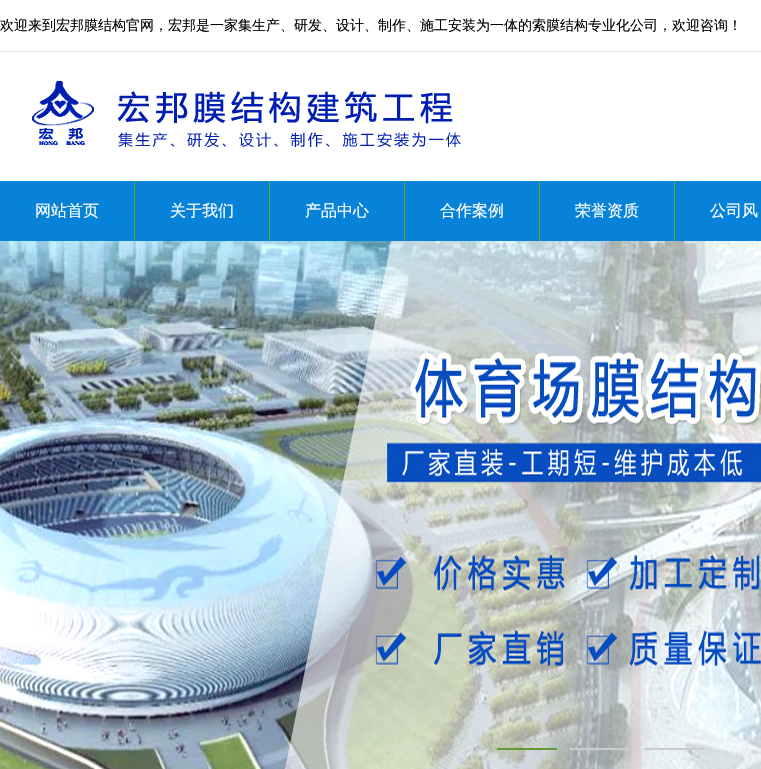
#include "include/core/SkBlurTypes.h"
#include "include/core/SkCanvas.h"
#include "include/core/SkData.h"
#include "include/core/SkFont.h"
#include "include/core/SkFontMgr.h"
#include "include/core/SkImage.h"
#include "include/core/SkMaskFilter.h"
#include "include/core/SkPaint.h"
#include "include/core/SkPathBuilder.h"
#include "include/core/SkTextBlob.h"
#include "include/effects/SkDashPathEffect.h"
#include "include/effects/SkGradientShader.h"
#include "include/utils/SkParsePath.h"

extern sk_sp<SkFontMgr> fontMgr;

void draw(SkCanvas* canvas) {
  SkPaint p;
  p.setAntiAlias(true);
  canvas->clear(SK_ColorWHITE);
  p.setColor(SkColorSetRGB(230, 230, 230));
  canvas->drawRect(SkRect::MakeLTRB(0, 51, 761, 52), p);
  canvas->drawImageRect(SkImages::DeferredFromEncodedData(SkData::MakeFromFileName("images/1.png")), SkRect::MakeLTRB(32, 81, 461, 148), SkSamplingOptions());
  p.setColor(SkColorSetRGB(7, 130, 217));
  canvas->drawRect(SkRect::MakeLTRB(0, 181, 761, 241), p);
  p.setColor(SkColorSetRGB(97, 177, 18));
  canvas->drawRect(SkRect::MakeLTRB(134, 181, 135, 241), p);
  canvas->drawRect(SkRect::MakeLTRB(269, 181, 270, 241), p);
  canvas->drawRect(SkRect::MakeLTRB(404, 181, 405, 241), p);
  canvas->drawRect(SkRect::MakeLTRB(539, 181, 540, 241), p);
  canvas->drawRect(SkRect::MakeLTRB(674, 181, 675, 241), p);
  canvas->drawImageRect(SkImages::DeferredFromEncodedData(SkData::MakeFromFileName("images/2.png")), SkRect::MakeLTRB(0, 241, 761, 769), SkSamplingOptions());
  p.setColor(SkColorSetRGB(102, 153, 52));
  canvas->drawRect(SkRect::MakeLTRB(497, 748, 557, 750), p);
  p.setColor(SkColorSetRGB(204, 204, 204));
  canvas->drawRect(SkRect::MakeLTRB(570, 748, 630, 750), p);
  canvas->drawRect(SkRect::MakeLTRB(644, 748, 704, 750), p);
  SkFont font1(fontMgr->matchFamilyStyle("WenQuanYi Zen Hei", SkFontStyle(500, SkFontStyle::kNormal_Width, SkFontStyle::kUpright_Slant)), 14);
  font1.setSubpixel(true);
  p.setColor(SK_ColorBLACK);
  canvas->drawString("欢迎来到宏邦膜结构官网，宏邦是一家集生产、研发、设计、制作、施工安装为一体的索膜结构专业化公司，欢迎咨询！", 0, 30, font1, p);
  SkFont font2(fontMgr->matchFamilyStyle("WenQuanYi Zen Hei", SkFontStyle(500, SkFontStyle::kNormal_Width, SkFontStyle::kUpright_Slant)), 16);
  font2.setSubpixel(true);
  p.setColor(SK_ColorWHITE);
  canvas->drawString("网站首页", 35, 216, font2, p);
  canvas->drawString("关于我们", 170, 216, font2, p);
  canvas->drawString("产品中心", 305, 216, font2, p);
  canvas->drawString("合作案例", 440, 216, font2, p);
  canvas->drawString("荣誉资质", 575, 216, font2, p);
  canvas->drawString("公司风", 710, 216, font2, p);
}
